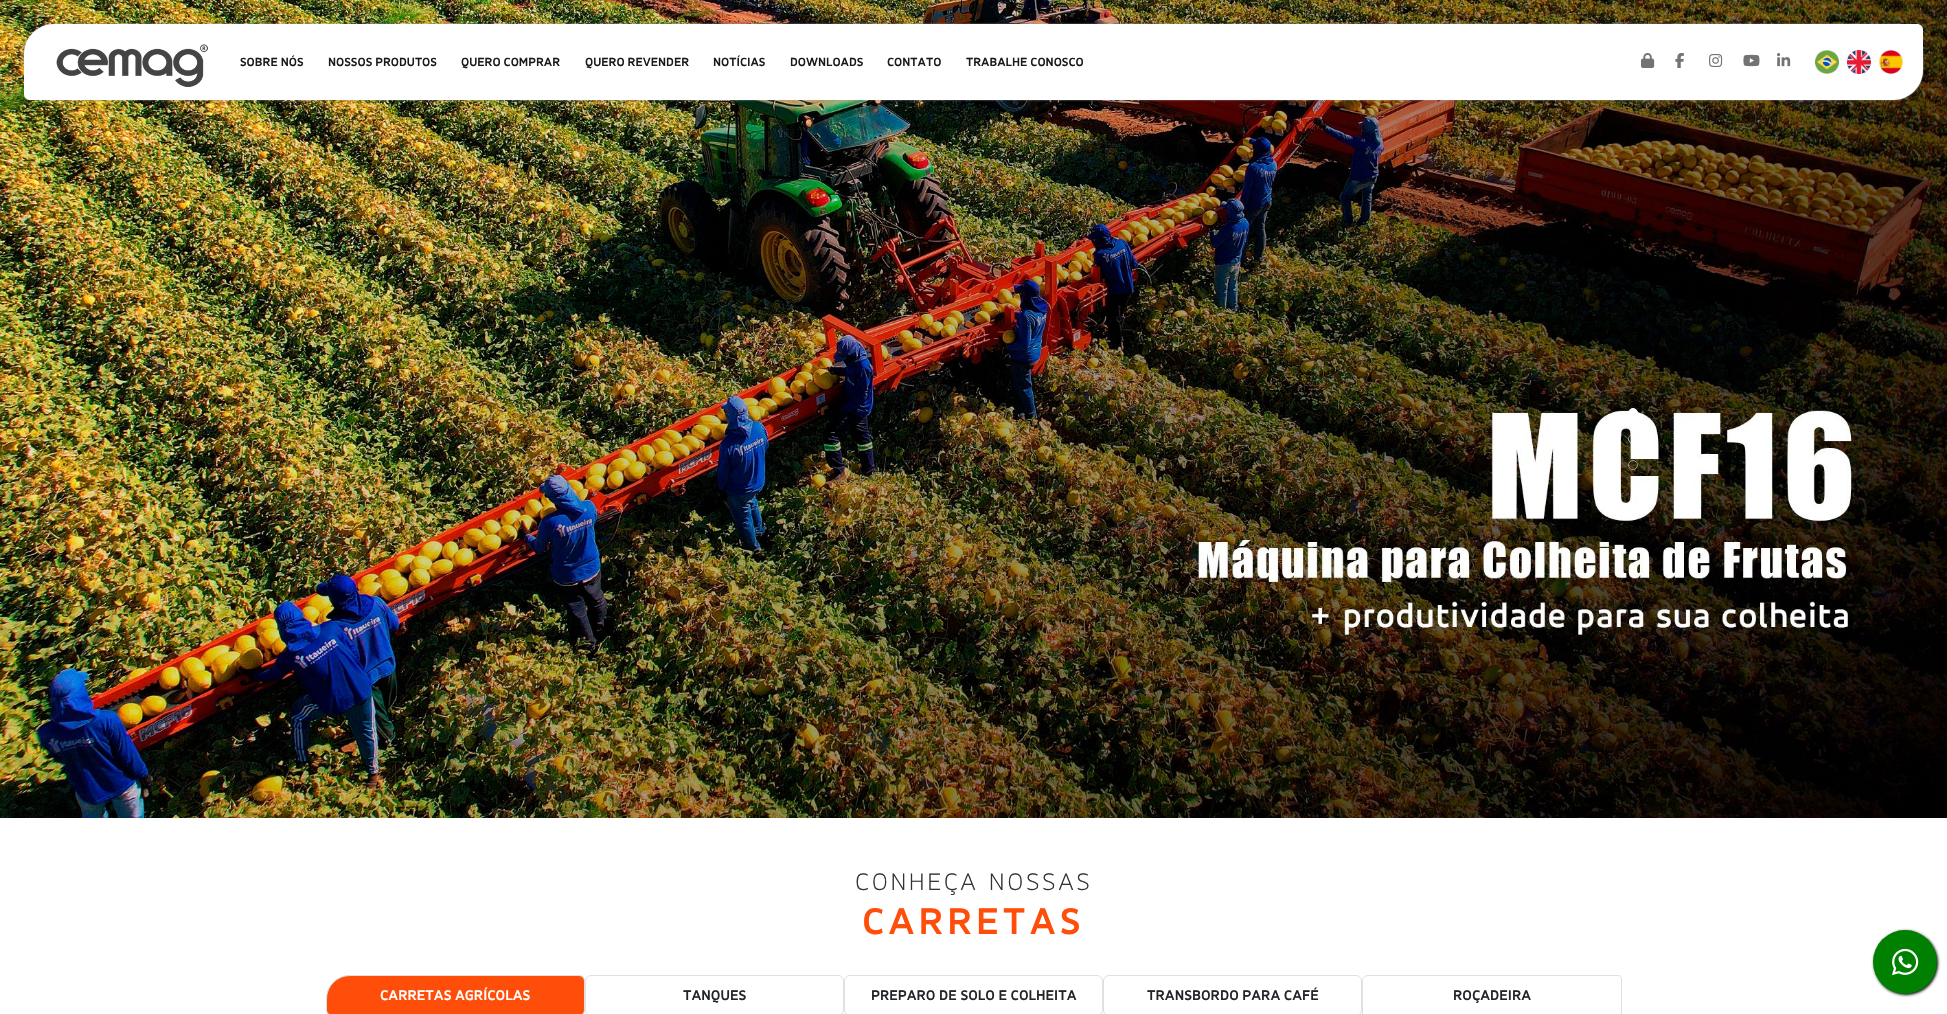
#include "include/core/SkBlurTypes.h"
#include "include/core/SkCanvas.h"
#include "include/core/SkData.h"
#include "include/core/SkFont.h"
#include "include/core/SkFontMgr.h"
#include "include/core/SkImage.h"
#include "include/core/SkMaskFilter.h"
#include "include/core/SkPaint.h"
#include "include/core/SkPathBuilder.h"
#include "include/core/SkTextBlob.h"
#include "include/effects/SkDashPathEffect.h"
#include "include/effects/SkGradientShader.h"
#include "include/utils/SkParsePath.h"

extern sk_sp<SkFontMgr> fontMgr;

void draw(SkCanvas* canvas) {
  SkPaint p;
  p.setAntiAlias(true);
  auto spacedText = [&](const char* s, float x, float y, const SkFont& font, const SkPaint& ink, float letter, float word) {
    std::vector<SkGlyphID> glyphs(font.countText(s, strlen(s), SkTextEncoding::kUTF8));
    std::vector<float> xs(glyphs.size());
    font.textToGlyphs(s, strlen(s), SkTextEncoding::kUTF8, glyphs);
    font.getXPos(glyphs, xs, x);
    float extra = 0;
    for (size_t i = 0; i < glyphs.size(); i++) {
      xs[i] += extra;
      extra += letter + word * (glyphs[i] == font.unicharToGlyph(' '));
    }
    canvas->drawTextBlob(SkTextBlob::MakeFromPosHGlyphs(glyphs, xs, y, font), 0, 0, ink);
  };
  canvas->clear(SK_ColorWHITE);
  canvas->drawImageRect(SkImages::DeferredFromEncodedData(SkData::MakeFromFileName("images/1.png")), SkRect::MakeLTRB(0, 0, 1947, 818), SkSamplingOptions());
  p.setColor(SkColorSetRGB(157, 152, 152));
  p.setMaskFilter(SkMaskFilter::MakeBlur(kNormal_SkBlurStyle, 1));
  canvas->drawRoundRect(SkRect::MakeLTRB(24, 24, 1923, 100), 30, 30, p);
  p.setMaskFilter(nullptr);
  p.setColor(SK_ColorWHITE);
  canvas->drawPath(SkPathBuilder().moveTo(54, 24).lineTo(1917, 24).cubicTo(1920.5f, 24, 1923, 26.5f, 1923, 30).lineTo(1923, 70).cubicTo(1923, 86.5f, 1909.5f, 100, 1893, 100).lineTo(30, 100).cubicTo(26.5f, 100, 24, 97.5f, 24, 94).lineTo(24, 54).cubicTo(24, 37.5f, 37.5f, 24, 54, 24).close().detach(), p);
  canvas->drawImageRect(SkImages::DeferredFromEncodedData(SkData::MakeFromFileName("images/2.png")), SkRect::MakeLTRB(56, 44, 208, 87), SkSamplingOptions());
  canvas->drawImageRect(SkImages::DeferredFromEncodedData(SkData::MakeFromFileName("images/3.png")), SkRect::MakeLTRB(1641, 53, 1655, 68), SkSamplingOptions());
  canvas->drawImageRect(SkImages::DeferredFromEncodedData(SkData::MakeFromFileName("images/4.png")), SkRect::MakeLTRB(1675, 53, 1684, 68), SkSamplingOptions());
  canvas->drawImageRect(SkImages::DeferredFromEncodedData(SkData::MakeFromFileName("images/5.png")), SkRect::MakeLTRB(1709, 54, 1723, 67), SkSamplingOptions());
  canvas->drawImageRect(SkImages::DeferredFromEncodedData(SkData::MakeFromFileName("images/6.png")), SkRect::MakeLTRB(1743, 54, 1760, 67), SkSamplingOptions());
  canvas->drawImageRect(SkImages::DeferredFromEncodedData(SkData::MakeFromFileName("images/7.png")), SkRect::MakeLTRB(1777, 53, 1791, 67), SkSamplingOptions());
  canvas->drawImageRect(SkImages::DeferredFromEncodedData(SkData::MakeFromFileName("images/8.png")), SkRect::MakeLTRB(1815, 50, 1839, 74), SkSamplingOptions());
  canvas->drawImageRect(SkImages::DeferredFromEncodedData(SkData::MakeFromFileName("images/9.png")), SkRect::MakeLTRB(1847, 50, 1871, 74), SkSamplingOptions());
  canvas->drawImageRect(SkImages::DeferredFromEncodedData(SkData::MakeFromFileName("images/10.png")), SkRect::MakeLTRB(1879, 50, 1903, 74), SkSamplingOptions());
  canvas->drawCircle(1633, 413, 4.5f, p);
  p.setStyle(SkPaint::kStroke_Style);
  p.setStrokeWidth(1);
  canvas->drawCircle(1633, 413, 4.5f, p);
  p.setColor(SkColorSetARGB(128, 255, 255, 255));
  canvas->drawCircle(1633, 439, 4.5f, p);
  canvas->drawCircle(1633, 465, 4.5f, p);
  p.setStyle(SkPaint::kFill_Style);
  p.setColor(SkColorSetRGB(255, 78, 9));
  canvas->drawPath(SkPathBuilder().moveTo(350, 975.5f).lineTo(579, 975.5f).cubicTo(582, 975.5f, 584.5f, 978, 584.5f, 981).lineTo(584.5f, 1010).cubicTo(584.5f, 1013, 582, 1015.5f, 579, 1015.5f).lineTo(332, 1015.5f).cubicTo(329, 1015.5f, 326.5f, 1013, 326.5f, 1010).lineTo(326.5f, 999).cubicTo(326.5f, 986, 337, 975.5f, 350, 975.5f).close().detach(), p);
  p.setStyle(SkPaint::kStroke_Style);
  p.setColor(SkColorSetRGB(224, 224, 224));
  canvas->drawPath(SkPathBuilder().moveTo(350, 975.5f).lineTo(579, 975.5f).cubicTo(582, 975.5f, 584.5f, 978, 584.5f, 981).lineTo(584.5f, 1010).cubicTo(584.5f, 1013, 582, 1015.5f, 579, 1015.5f).lineTo(332, 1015.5f).cubicTo(329, 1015.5f, 326.5f, 1013, 326.5f, 1010).lineTo(326.5f, 999).cubicTo(326.5f, 986, 337, 975.5f, 350, 975.5f).close().detach(), p);
  canvas->drawRoundRect(SkRect::MakeLTRB(585.5f, 975.5f, 843.5f, 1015.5f), 5.5f, 5.5f, p);
  canvas->drawRoundRect(SkRect::MakeLTRB(844.5f, 975.5f, 1102.5f, 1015.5f), 5.5f, 5.5f, p);
  canvas->drawRoundRect(SkRect::MakeLTRB(1103.5f, 975.5f, 1361.5f, 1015.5f), 5.5f, 5.5f, p);
  canvas->drawPath(SkPathBuilder().moveTo(1368, 975.5f).lineTo(1618, 975.5f).cubicTo(1620, 975.5f, 1621.5f, 977, 1621.5f, 979).lineTo(1621.5f, 1012).cubicTo(1621.5f, 1014, 1620, 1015.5f, 1618, 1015.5f).lineTo(1362.5f, 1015.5f).lineTo(1362.5f, 981).cubicTo(1362.5f, 978, 1365, 975.5f, 1368, 975.5f).close().detach(), p);
  p.setStyle(SkPaint::kFill_Style);
  p.setColor(SK_ColorBLACK);
  p.setMaskFilter(SkMaskFilter::MakeBlur(kNormal_SkBlurStyle, 1.5f));
  canvas->drawRoundRect(SkRect::MakeLTRB(1874, 931, 1938, 995), 32, 32, p);
  p.setMaskFilter(nullptr);
  p.setColor(SkColorSetRGB(0, 128, 0));
  canvas->drawCircle(1905, 962, 32, p);
  canvas->drawImageRect(SkImages::DeferredFromEncodedData(SkData::MakeFromFileName("images/11.png")), SkRect::MakeLTRB(1892, 948, 1919, 976), SkSamplingOptions());
  SkFont font1(fontMgr->matchFamilyStyle("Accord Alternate", SkFontStyle::Bold()), 12.75f);
  font1.setSubpixel(true);
  p.setColor(SkColorSetRGB(26, 26, 26));
  canvas->drawString("SOBRE NÓS", 240, 66, font1, p);
  canvas->drawString("NOSSOS PRODUTOS", 328, 66, font1, p);
  canvas->drawString("QUERO COMPRAR", 461, 66, font1, p);
  canvas->drawString("QUERO REVENDER", 585, 66, font1, p);
  canvas->drawString("NOTÍCIAS", 713, 66, font1, p);
  canvas->drawString("DOWNLOADS", 790, 66, font1, p);
  canvas->drawString("CONTATO", 887, 66, font1, p);
  canvas->drawString("TRABALHE CONOSCO", 966, 66, font1, p);
  SkFont font2(fontMgr->matchFamilyStyle("Accord Alternate", SkFontStyle(200, SkFontStyle::kNormal_Width, SkFontStyle::kUpright_Slant)), 26.5f);
  font2.setSubpixel(true);
  p.setColor(SkColorSetRGB(51, 51, 51));
  spacedText("CONHEÇA NOSSAS", 855, 890, font2, p, 2.6f, 0);
  SkFont font3(fontMgr->matchFamilyStyle("Accord Alternate", SkFontStyle::Bold()), 40);
  font3.setSubpixel(true);
  p.setColor(SkColorSetRGB(255, 78, 9));
  spacedText("CARRETAS", 862, 934, font3, p, 4, 0);
  SkFont font4(fontMgr->matchFamilyStyle("Accord Alternate", SkFontStyle::Bold()), 15);
  font4.setSubpixel(true);
  p.setColor(SK_ColorWHITE);
  canvas->drawString("CARRETAS AGRÍCOLAS", 380, 1000, font4, p);
  p.setColor(SkColorSetRGB(33, 37, 41));
  canvas->drawString("TANQUES", 683, 1000, font4, p);
  canvas->drawString("PREPARO DE SOLO E COLHEITA", 871, 1000, font4, p);
  canvas->drawString("TRANSBORDO PARA CAFÉ", 1147, 1000, font4, p);
  canvas->drawString("ROÇADEIRA", 1453, 1000, font4, p);
}
